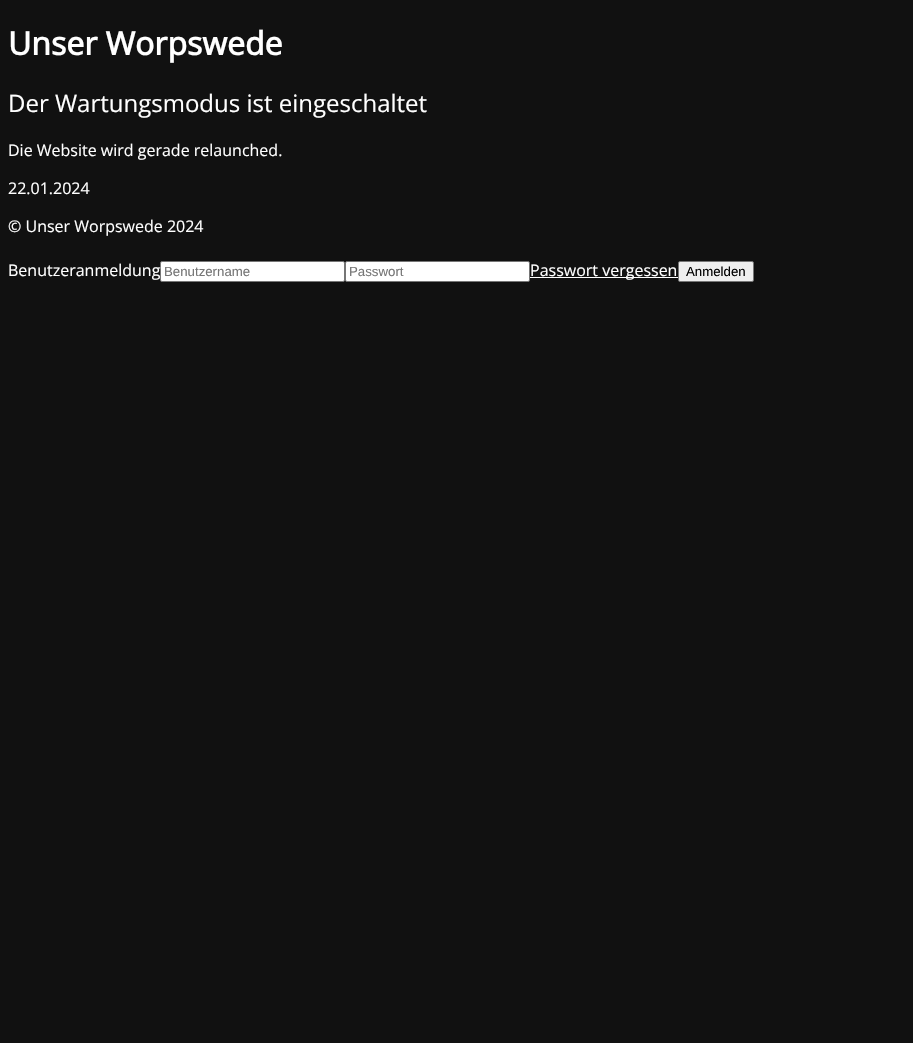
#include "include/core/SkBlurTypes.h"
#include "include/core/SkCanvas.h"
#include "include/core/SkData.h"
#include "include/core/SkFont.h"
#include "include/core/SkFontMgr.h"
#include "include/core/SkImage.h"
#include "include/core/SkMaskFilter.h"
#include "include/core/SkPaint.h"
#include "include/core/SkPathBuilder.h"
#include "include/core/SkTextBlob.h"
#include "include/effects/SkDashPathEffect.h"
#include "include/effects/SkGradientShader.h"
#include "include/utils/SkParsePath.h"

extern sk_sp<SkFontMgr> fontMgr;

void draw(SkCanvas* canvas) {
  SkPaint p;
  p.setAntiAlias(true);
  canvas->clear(SkColorSetRGB(17, 17, 17));
  p.setColor(SK_ColorWHITE);
  canvas->drawRoundRect(SkRect::MakeLTRB(160.5f, 261.5f, 344.5f, 281.5f), 1.5f, 1.5f, p);
  p.setStyle(SkPaint::kStroke_Style);
  p.setStrokeWidth(1);
  p.setColor(SkColorSetRGB(118, 118, 118));
  canvas->drawRoundRect(SkRect::MakeLTRB(160.5f, 261.5f, 344.5f, 281.5f), 1.5f, 1.5f, p);
  p.setStyle(SkPaint::kFill_Style);
  p.setColor(SK_ColorWHITE);
  canvas->drawRoundRect(SkRect::MakeLTRB(345.5f, 261.5f, 529.5f, 281.5f), 1.5f, 1.5f, p);
  p.setStyle(SkPaint::kStroke_Style);
  p.setColor(SkColorSetRGB(118, 118, 118));
  canvas->drawRoundRect(SkRect::MakeLTRB(345.5f, 261.5f, 529.5f, 281.5f), 1.5f, 1.5f, p);
  p.setStyle(SkPaint::kFill_Style);
  p.setColor(SK_ColorWHITE);
  canvas->drawRect(SkRect::MakeLTRB(530, 277, 678, 278), p);
  p.setColor(SkColorSetRGB(239, 239, 239));
  canvas->drawRoundRect(SkRect::MakeLTRB(678.5f, 261.5f, 753.5f, 281.5f), 1.5f, 1.5f, p);
  p.setStyle(SkPaint::kStroke_Style);
  p.setColor(SkColorSetRGB(118, 118, 118));
  canvas->drawRoundRect(SkRect::MakeLTRB(678.5f, 261.5f, 753.5f, 281.5f), 1.5f, 1.5f, p);
  SkFont font1(fontMgr->matchFamilyStyle("Open Sans", SkFontStyle::Bold()), 32);
  font1.setSubpixel(true);
  p.setStyle(SkPaint::kFill_Style);
  p.setColor(SK_ColorWHITE);
  canvas->drawString("Unser Worpswede", 8, 55, font1, p);
  SkFont font2(fontMgr->matchFamilyStyle("Open Sans", SkFontStyle::Normal()), 24);
  font2.setSubpixel(true);
  canvas->drawString("Der Wartungsmodus ist eingeschaltet", 8, 112, font2, p);
  SkFont font3(fontMgr->matchFamilyStyle("Open Sans", SkFontStyle::Normal()), 16);
  font3.setSubpixel(true);
  canvas->drawString("Die Website wird gerade relaunched.", 8, 156, font3, p);
  canvas->drawString("22.01.2024", 8, 194, font3, p);
  canvas->drawString("© Unser Worpswede 2024", 8, 232, font3, p);
  canvas->drawString("Benutzeranmeldung", 8, 276, font3, p);
  SkFont font4(fontMgr->matchFamilyStyle("Liberation Sans", SkFontStyle::Normal()), 13.25f);
  font4.setSubpixel(true);
  p.setColor(SkColorSetRGB(117, 117, 117));
  canvas->drawString("Benutzername", 164, 276, font4, p);
  canvas->drawString("Passwort", 349, 276, font4, p);
  p.setColor(SK_ColorWHITE);
  canvas->drawString("Passwort vergessen", 530, 276, font3, p);
  p.setColor(SK_ColorBLACK);
  canvas->drawString("Anmelden", 686, 276, font4, p);
}
